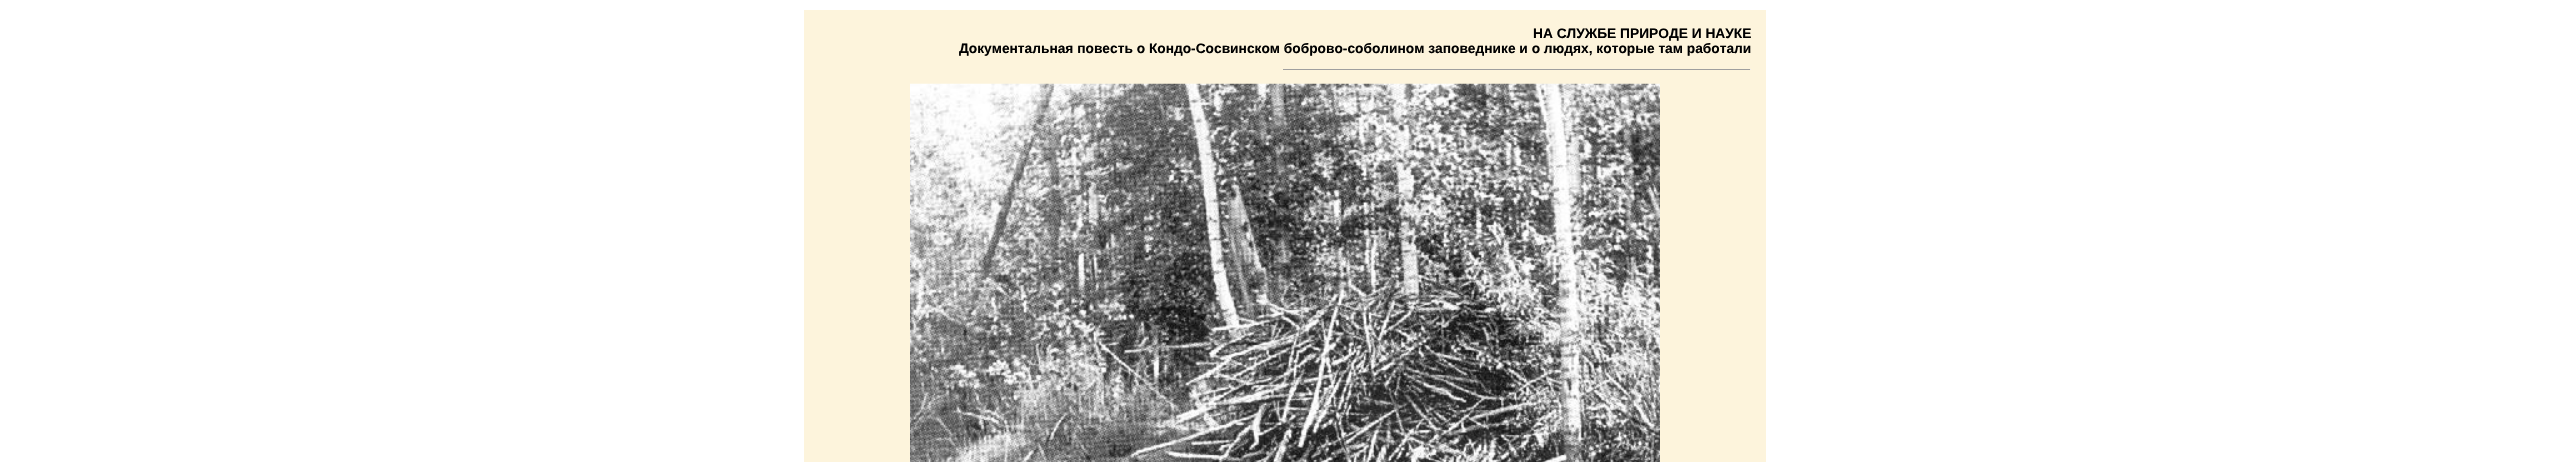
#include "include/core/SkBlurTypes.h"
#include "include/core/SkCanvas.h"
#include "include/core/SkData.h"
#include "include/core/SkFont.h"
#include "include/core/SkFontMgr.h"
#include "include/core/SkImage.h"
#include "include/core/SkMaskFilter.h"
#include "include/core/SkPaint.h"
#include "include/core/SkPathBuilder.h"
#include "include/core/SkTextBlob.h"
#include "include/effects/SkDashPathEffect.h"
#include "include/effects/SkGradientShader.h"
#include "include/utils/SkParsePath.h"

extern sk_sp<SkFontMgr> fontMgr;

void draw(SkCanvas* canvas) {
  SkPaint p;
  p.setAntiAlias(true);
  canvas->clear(SK_ColorWHITE);
  p.setColor(SkColorSetRGB(253, 244, 220));
  canvas->drawRect(SkRect::MakeLTRB(804, 10, 1766, 462), p);
  p.setColor(SkColorSetRGB(159, 159, 159));
  canvas->drawRect(SkRect::MakeLTRB(1283, 69, 1751, 70), p);
  p.setColor(SkColorSetRGB(238, 238, 238));
  canvas->drawRect(SkRect::MakeLTRB(1750, 69, 1751, 70), p);
  canvas->drawImageRect(SkImages::DeferredFromEncodedData(SkData::MakeFromFileName("images/1.png")), SkRect::MakeLTRB(910, 83, 1660, 462), SkSamplingOptions());
  SkFont font1(fontMgr->matchFamilyStyle("Liberation Sans", SkFontStyle::Bold()), 13.75f);
  font1.setSubpixel(true);
  p.setColor(SK_ColorBLACK);
  canvas->drawString("НА СЛУЖБЕ ПРИРОДЕ И НАУКЕ", 1533, 38, font1, p);
  canvas->drawString("Документальная повесть о Кондо-Сосвинском боброво-соболином заповеднике и о людях, которые там работали", 959, 53, font1, p);
}
